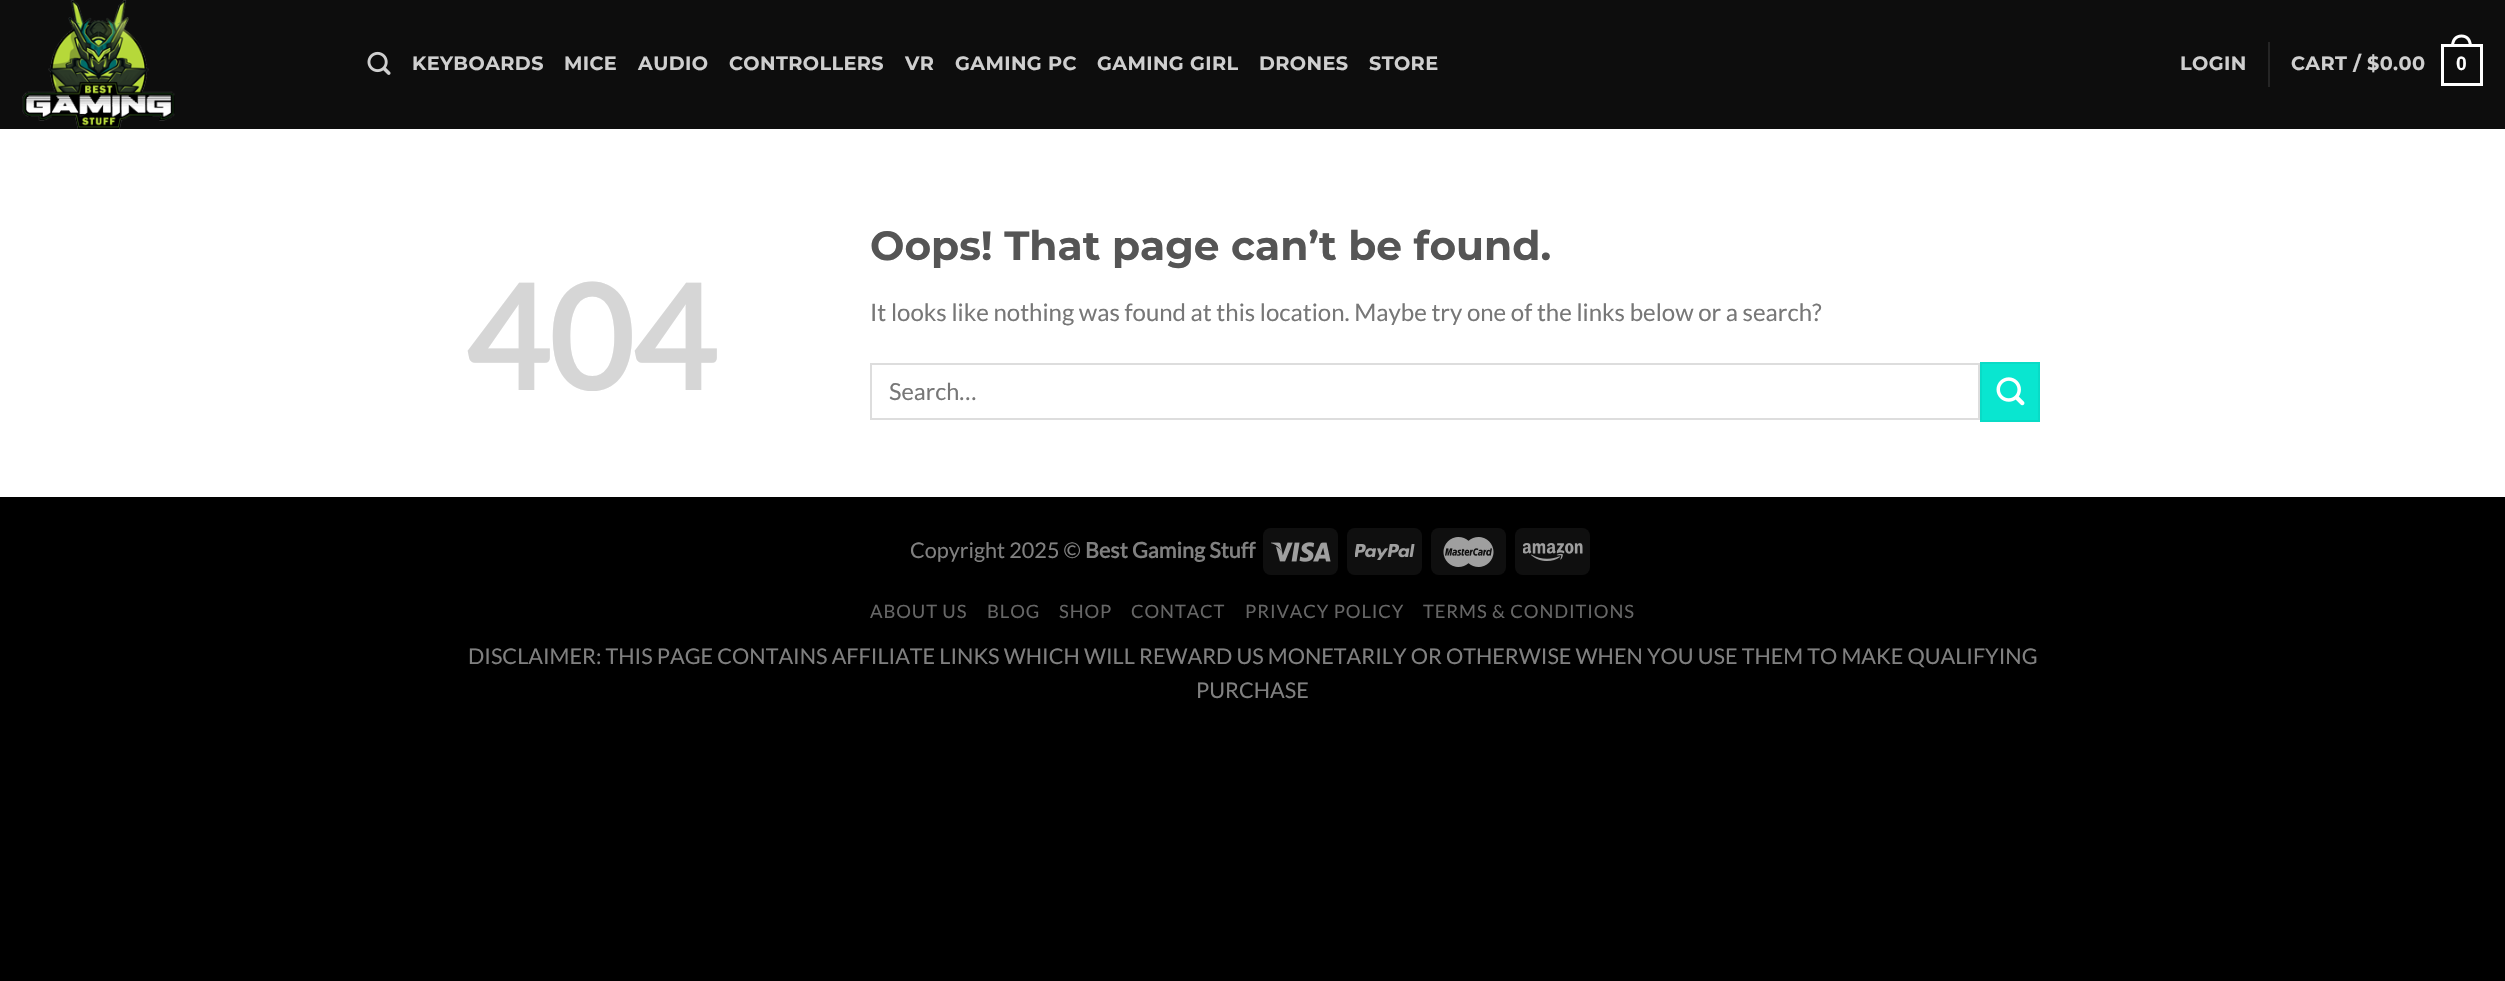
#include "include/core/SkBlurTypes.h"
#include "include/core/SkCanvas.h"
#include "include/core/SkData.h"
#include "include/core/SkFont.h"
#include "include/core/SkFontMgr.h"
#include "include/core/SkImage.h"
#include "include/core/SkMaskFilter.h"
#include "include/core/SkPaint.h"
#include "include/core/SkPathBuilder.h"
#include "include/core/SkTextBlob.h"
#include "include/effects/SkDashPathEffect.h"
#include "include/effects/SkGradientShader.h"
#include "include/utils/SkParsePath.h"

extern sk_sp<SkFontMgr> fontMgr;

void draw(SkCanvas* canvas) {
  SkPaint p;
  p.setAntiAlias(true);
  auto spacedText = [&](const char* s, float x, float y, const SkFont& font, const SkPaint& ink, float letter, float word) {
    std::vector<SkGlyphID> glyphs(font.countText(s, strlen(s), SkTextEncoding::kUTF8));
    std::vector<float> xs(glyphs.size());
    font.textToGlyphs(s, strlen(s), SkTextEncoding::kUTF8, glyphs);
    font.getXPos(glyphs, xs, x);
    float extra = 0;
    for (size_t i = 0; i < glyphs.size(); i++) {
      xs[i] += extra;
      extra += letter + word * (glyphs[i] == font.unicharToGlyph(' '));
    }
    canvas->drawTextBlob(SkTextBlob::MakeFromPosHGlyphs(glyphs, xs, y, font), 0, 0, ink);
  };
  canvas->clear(SK_ColorBLACK);
  p.setColor(SK_ColorWHITE);
  canvas->drawRect(SkRect::MakeLTRB(0, 129, 2505, 497), p);
  p.setColor(SkColorSetRGB(13, 13, 13));
  canvas->drawRect(SkRect::MakeLTRB(0, 0, 2505, 129), p);
  canvas->drawImageRect(SkImages::DeferredFromEncodedData(SkData::MakeFromFileName("images/1.png")), SkRect::MakeLTRB(22, 0, 175, 129), SkSamplingOptions());
  canvas->drawImageRect(SkImages::DeferredFromEncodedData(SkData::MakeFromFileName("images/2.png")), SkRect::MakeLTRB(367, 51, 391, 75), SkSamplingOptions());
  p.setColor(SkColorSetRGB(37, 37, 37));
  canvas->drawRect(SkRect::MakeLTRB(2268, 42, 2270, 87), p);
  p.setStyle(SkPaint::kStroke_Style);
  p.setStrokeWidth(3);
  p.setColor(SK_ColorWHITE);
  canvas->drawRect(SkRect::MakeLTRB(2442.5f, 45.5f, 2481.5f, 84.5f), p);
  p.setStyle(SkPaint::kFill_Style);
  canvas->drawPath(SkPathBuilder(SkPathFillType::kEvenOdd).moveTo(2461.5f, 34.5f).cubicTo(2468.5f, 34.5f, 2472, 40, 2472, 46.5f).lineTo(2451, 46.5f).cubicTo(2451, 40, 2454.5f, 34.5f, 2461.5f, 34.5f).close().moveTo(2461.5f, 37.5f).cubicTo(2467, 37.5f, 2469, 42, 2469, 46.5f).lineTo(2454, 46.5f).cubicTo(2454, 42, 2456, 37.5f, 2461.5f, 37.5f).close().detach(), p);
  p.setStyle(SkPaint::kStroke_Style);
  p.setStrokeWidth(2);
  p.setColor(SkColorSetRGB(221, 221, 221));
  canvas->drawRect(SkRect::MakeLTRB(871, 364, 1979, 419), p);
  p.setStyle(SkPaint::kFill_Style);
  p.setColor(SkColorSetRGB(9, 230, 208));
  canvas->drawRect(SkRect::MakeLTRB(1981, 363, 2039, 421), p);
  p.setStyle(SkPaint::kStroke_Style);
  p.setColor(SkColorSetRGB(9, 219, 198));
  canvas->drawRect(SkRect::MakeLTRB(1981, 363, 2039, 421), p);
  canvas->drawImageRect(SkImages::DeferredFromEncodedData(SkData::MakeFromFileName("images/3.png")), SkRect::MakeLTRB(1996, 377, 2025, 406), SkSamplingOptions());
  p.setStyle(SkPaint::kFill_Style);
  p.setColor(SkColorSetRGB(15, 15, 15));
  canvas->drawRoundRect(SkRect::MakeLTRB(1263, 528, 1338, 575), 8, 8, p);
  canvas->drawImageRect(SkImages::DeferredFromEncodedData(SkData::MakeFromFileName("images/4.png")), SkRect::MakeLTRB(1271, 542, 1331, 562), SkSamplingOptions());
  canvas->drawRoundRect(SkRect::MakeLTRB(1347, 528, 1422, 575), 8, 8, p);
  canvas->drawImageRect(SkImages::DeferredFromEncodedData(SkData::MakeFromFileName("images/5.png")), SkRect::MakeLTRB(1355, 544, 1415, 560), SkSamplingOptions());
  canvas->drawRoundRect(SkRect::MakeLTRB(1431, 528, 1506, 575), 8, 8, p);
  canvas->drawImageRect(SkImages::DeferredFromEncodedData(SkData::MakeFromFileName("images/6.png")), SkRect::MakeLTRB(1443, 537, 1494, 567), SkSamplingOptions());
  canvas->drawRoundRect(SkRect::MakeLTRB(1515, 528, 1590, 575), 8, 8, p);
  canvas->drawImageRect(SkImages::DeferredFromEncodedData(SkData::MakeFromFileName("images/7.png")), SkRect::MakeLTRB(1523, 543, 1583, 561), SkSamplingOptions());
  SkFont font1(fontMgr->matchFamilyStyle("Montserrat", SkFontStyle::Bold()), 19.25f);
  font1.setSubpixel(true);
  p.setColor(SkColorSetRGB(207, 207, 207));
  spacedText("KEYBOARDS", 412, 70, font1, p, 0.4f, 0);
  spacedText("MICE", 564, 70, font1, p, 0.4f, 0);
  spacedText("AUDIO", 638, 70, font1, p, 0.4f, 0);
  spacedText("CONTROLLERS", 729, 70, font1, p, 0.4f, 0);
  spacedText("VR", 905, 70, font1, p, 0.4f, 0);
  spacedText("GAMING PC", 955, 70, font1, p, 0.4f, 0);
  spacedText("GAMING GIRL", 1097, 70, font1, p, 0.4f, 0);
  spacedText("DRONES", 1259, 70, font1, p, 0.4f, 0);
  spacedText("STORE", 1369, 70, font1, p, 0.4f, 0);
  spacedText("LOGIN", 2180, 70, font1, p, 0.4f, 0);
  spacedText("CART / $0.00", 2291, 70, font1, p, 0.4f, 0);
  SkFont font2(fontMgr->matchFamilyStyle("Liberation Sans", SkFontStyle::Bold()), 19.25f);
  font2.setSubpixel(true);
  p.setColor(SK_ColorWHITE);
  spacedText("0", 2456, 70, font2, p, 0.4f, 0);
  SkFont font3(fontMgr->matchFamilyStyle("Lato", SkFontStyle::Bold()), 144);
  font3.setSubpixel(true);
  p.setColor(SkColorSetRGB(214, 214, 214));
  canvas->drawString("404", 465, 390, font3, p);
  SkFont font4(fontMgr->matchFamilyStyle("Montserrat", SkFontStyle::Bold()), 40.75f);
  font4.setSubpixel(true);
  p.setColor(SkColorSetRGB(85, 85, 85));
  canvas->drawString("Oops! That page can’t be found.", 870, 260, font4, p);
  SkFont font5(fontMgr->matchFamilyStyle("Lato", SkFontStyle::Normal()), 24);
  font5.setSubpixel(true);
  p.setColor(SkColorSetRGB(119, 119, 119));
  canvas->drawString("It looks like nothing was found at this location. Maybe try one of the links below or a search?", 870, 321, font5, p);
  SkFont font6(fontMgr->matchFamilyStyle("Lato", SkFontStyle::Normal()), 23.5f);
  font6.setSubpixel(true);
  canvas->drawString("Search…", 889, 400, font6, p);
  SkFont font7(fontMgr->matchFamilyStyle("Lato", SkFontStyle::Normal()), 21.6f);
  font7.setSubpixel(true);
  p.setColor(SkColorSetRGB(128, 128, 128));
  canvas->drawString("Copyright 2025 ©", 910, 558, font7, p);
  SkFont font8(fontMgr->matchFamilyStyle("Lato", SkFontStyle::Bold()), 21.6f);
  font8.setSubpixel(true);
  canvas->drawString("Best Gaming Stuff", 1085, 558, font8, p);
  SkFont font9(fontMgr->matchFamilyStyle("Lato", SkFontStyle::Normal()), 18.4f);
  font9.setSubpixel(true);
  p.setColor(SkColorSetRGB(102, 102, 102));
  spacedText("ABOUT US", 870, 618, font9, p, 0.9f, 0);
  spacedText("BLOG", 987, 618, font9, p, 0.9f, 0);
  spacedText("SHOP", 1059, 618, font9, p, 0.9f, 0);
  spacedText("CONTACT", 1131, 618, font9, p, 0.9f, 0);
  spacedText("PRIVACY POLICY", 1245, 618, font9, p, 0.9f, 0);
  spacedText("TERMS & CONDITIONS", 1423, 618, font9, p, 0.9f, 0);
  p.setColor(SkColorSetRGB(128, 128, 128));
  canvas->drawString("DISCLAIMER: THIS PAGE CONTAINS AFFILIATE LINKS WHICH WILL REWARD US MONETARILY OR OTHERWISE WHEN YOU USE THEM TO MAKE QUALIFYING", 468, 664, font7, p);
  canvas->drawString("PURCHASE", 1196, 698, font7, p);
}
